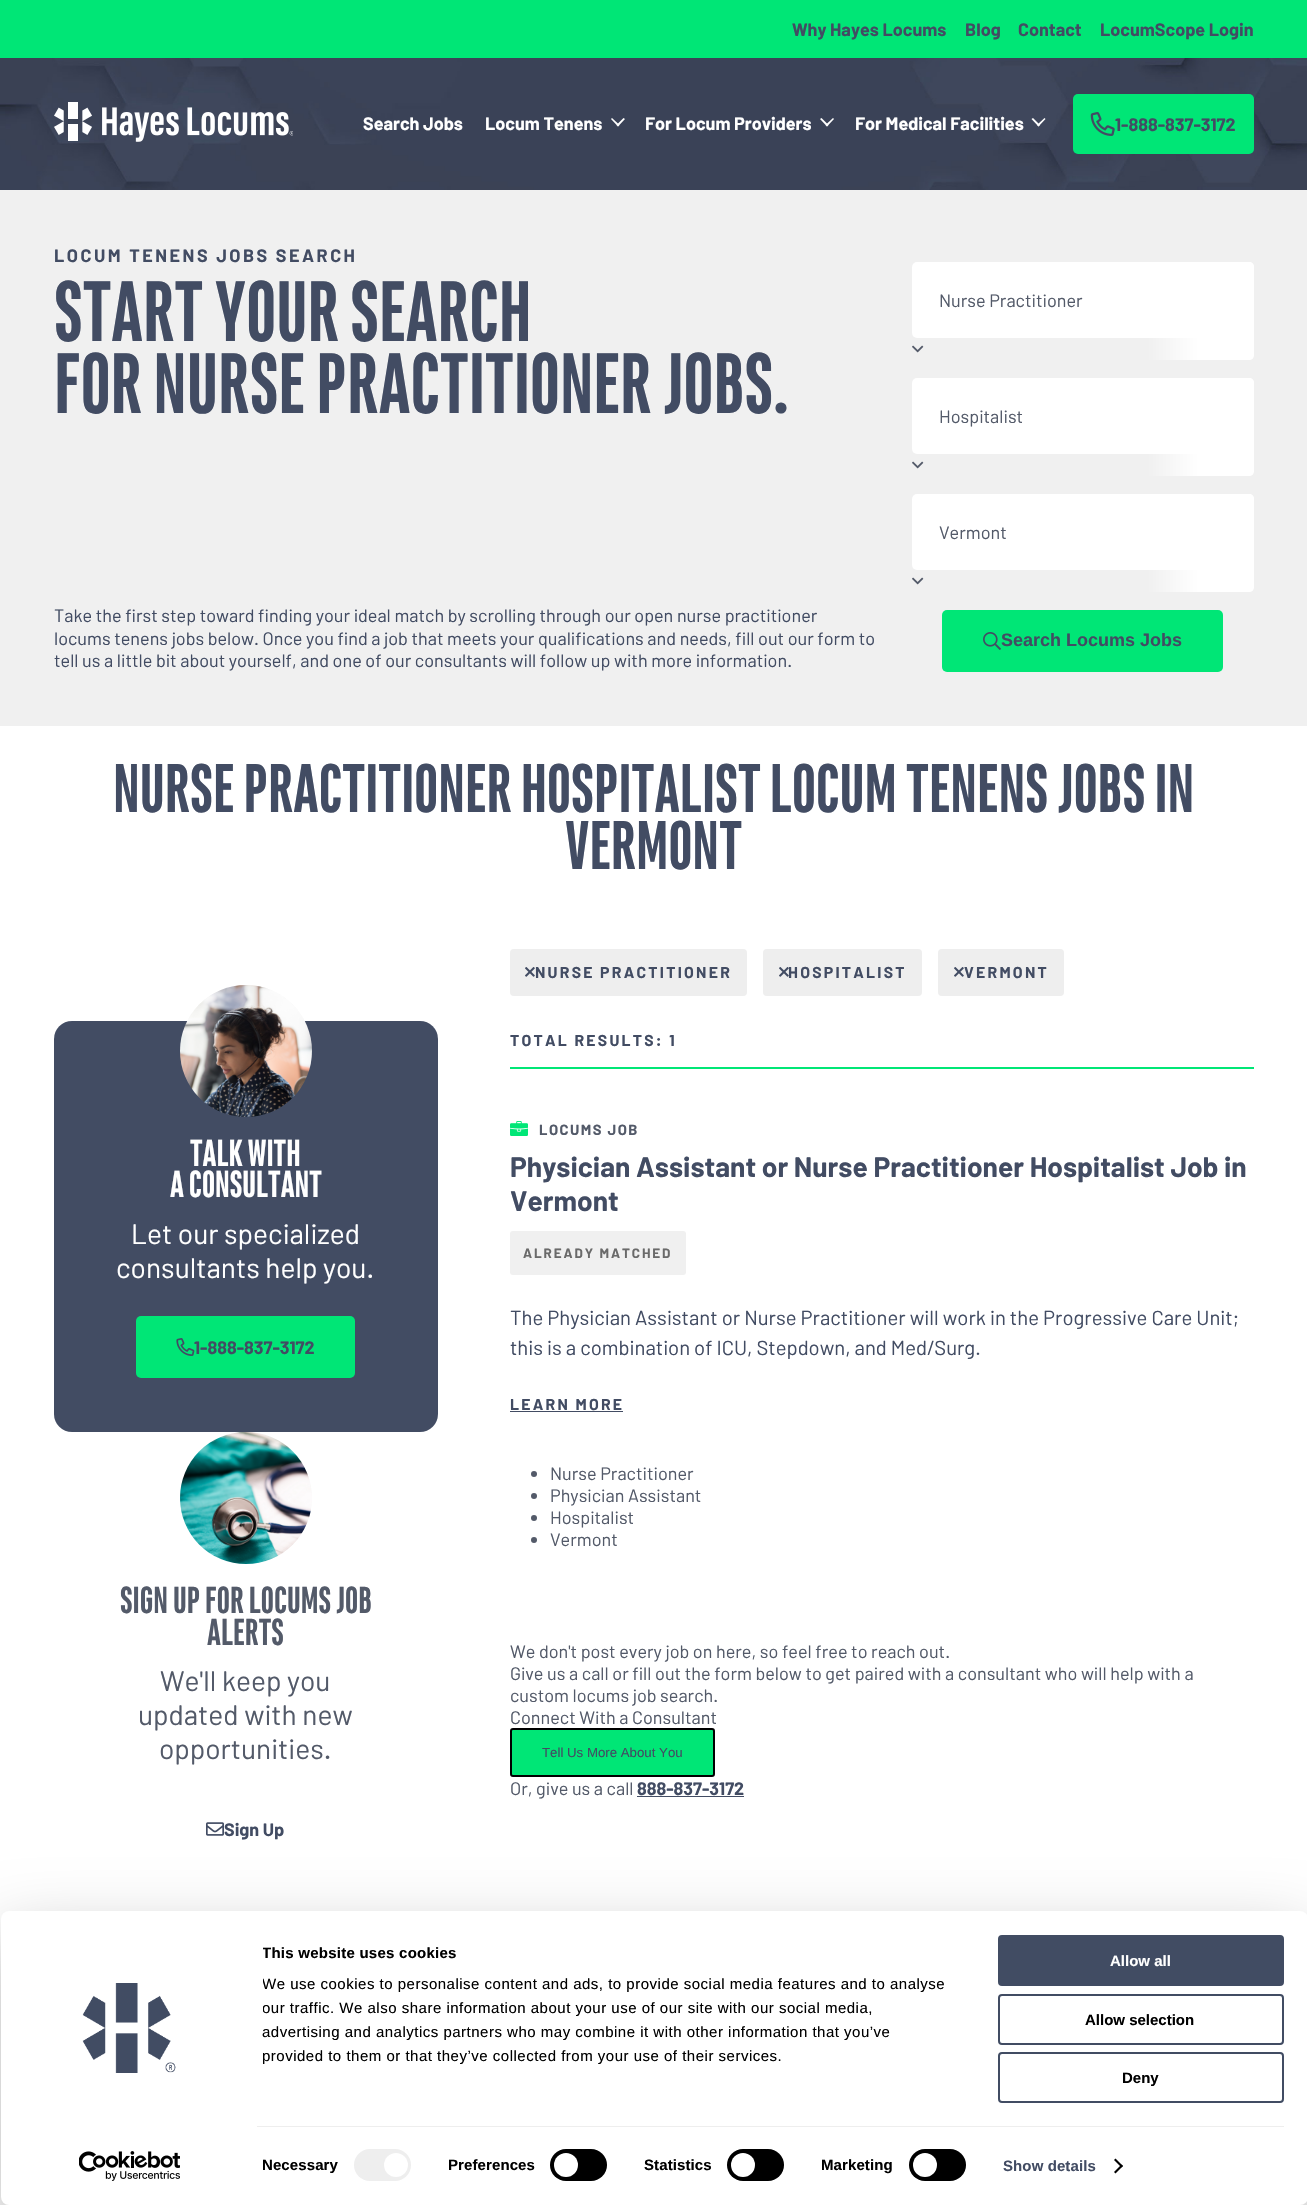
#include "include/core/SkBlurTypes.h"
#include "include/core/SkCanvas.h"
#include "include/core/SkData.h"
#include "include/core/SkFont.h"
#include "include/core/SkFontMgr.h"
#include "include/core/SkImage.h"
#include "include/core/SkMaskFilter.h"
#include "include/core/SkPaint.h"
#include "include/core/SkPathBuilder.h"
#include "include/core/SkTextBlob.h"
#include "include/effects/SkDashPathEffect.h"
#include "include/effects/SkGradientShader.h"
#include "include/utils/SkParsePath.h"

extern sk_sp<SkFontMgr> fontMgr;

void draw(SkCanvas* canvas) {
  SkPaint p;
  p.setAntiAlias(true);
  auto spacedText = [&](const char* s, float x, float y, const SkFont& font, const SkPaint& ink, float letter, float word) {
    std::vector<SkGlyphID> glyphs(font.countText(s, strlen(s), SkTextEncoding::kUTF8));
    std::vector<float> xs(glyphs.size());
    font.textToGlyphs(s, strlen(s), SkTextEncoding::kUTF8, glyphs);
    font.getXPos(glyphs, xs, x);
    float extra = 0;
    for (size_t i = 0; i < glyphs.size(); i++) {
      xs[i] += extra;
      extra += letter + word * (glyphs[i] == font.unicharToGlyph(' '));
    }
    canvas->drawTextBlob(SkTextBlob::MakeFromPosHGlyphs(glyphs, xs, y, font), 0, 0, ink);
  };
  canvas->clear(SK_ColorWHITE);
  p.setColor(SkColorSetRGB(0, 230, 118));
  canvas->drawRect(SkRect::MakeLTRB(0, 0, 1307, 58), p);
  canvas->drawImageRect(SkImages::DeferredFromEncodedData(SkData::MakeFromFileName("images/1.png")), SkRect::MakeLTRB(0, 58, 1307, 190), SkSamplingOptions());
  canvas->drawImageRect(SkImages::DeferredFromEncodedData(SkData::MakeFromFileName("images/2.png")), SkRect::MakeLTRB(54, 102, 293, 142), SkSamplingOptions());
  p.setColor(SK_ColorWHITE);
  canvas->drawPath(SkPathBuilder().moveTo(623.5f, 118).lineTo(625, 119).lineTo(618, 126.5f).lineTo(616.5f, 125).close().detach(), p);
  canvas->drawPath(SkPathBuilder().moveTo(612, 118).lineTo(619.5f, 125).lineTo(618, 126.5f).lineTo(611, 119).close().detach(), p);
  canvas->drawPath(SkPathBuilder().moveTo(833, 118).lineTo(834, 119).lineTo(827, 126.5f).lineTo(825.5f, 125).close().detach(), p);
  canvas->drawPath(SkPathBuilder().moveTo(821.5f, 118).lineTo(828.5f, 125).lineTo(827, 126.5f).lineTo(820, 119).close().detach(), p);
  canvas->drawPath(SkPathBuilder().moveTo(1044.5f, 118).lineTo(1045.5f, 119).lineTo(1038.5f, 126.5f).lineTo(1037, 125).close().detach(), p);
  canvas->drawPath(SkPathBuilder().moveTo(1033, 118).lineTo(1040, 125).lineTo(1038.5f, 126.5f).lineTo(1031.5f, 119).close().detach(), p);
  p.setColor(SkColorSetRGB(0, 230, 118));
  canvas->drawRoundRect(SkRect::MakeLTRB(1073, 94, 1254, 154), 5, 5, p);
  canvas->drawImageRect(SkImages::DeferredFromEncodedData(SkData::MakeFromFileName("images/3.png")), SkRect::MakeLTRB(1090, 112, 1115, 136), SkSamplingOptions());
  p.setColor(SkColorSetRGB(240, 240, 240));
  canvas->drawRect(SkRect::MakeLTRB(0, 190, 1307, 726), p);
  p.setColor(SK_ColorWHITE);
  canvas->drawRoundRect(SkRect::MakeLTRB(912, 262, 1254, 338), 5, 5, p);
  {
    const SkColor colors[] = {SkColorSetARGB(0, 255, 255, 255), SK_ColorWHITE};
    const float stops[] = {0, 0.5f};
    const SkPoint ends[] = {{1146, 311}, {1254, 311}};
    p.setShader(SkGradientShader::MakeLinear(ends, colors, stops, 2, SkTileMode::kClamp));
    p.setAlpha(255);
  }
  canvas->drawPath(SkPathBuilder().moveTo(1146, 262).lineTo(1249, 262).cubicTo(1252, 262, 1254, 264, 1254, 267).lineTo(1254, 355).cubicTo(1254, 358, 1252, 360, 1249, 360).lineTo(1146, 360).close().detach(), p);
  canvas->drawImageRect(SkImages::DeferredFromEncodedData(SkData::MakeFromFileName("images/4.png")), SkRect::MakeLTRB(912, 345, 924, 353), SkSamplingOptions());
  p.setShader(nullptr);
  p.setColor(SK_ColorWHITE);
  canvas->drawRoundRect(SkRect::MakeLTRB(912, 378, 1254, 454), 5, 5, p);
  {
    const SkColor colors[] = {SkColorSetARGB(0, 255, 255, 255), SK_ColorWHITE};
    const float stops[] = {0, 0.5f};
    const SkPoint ends[] = {{1146, 427}, {1254, 427}};
    p.setShader(SkGradientShader::MakeLinear(ends, colors, stops, 2, SkTileMode::kClamp));
    p.setAlpha(255);
  }
  canvas->drawPath(SkPathBuilder().moveTo(1146, 378).lineTo(1249, 378).cubicTo(1252, 378, 1254, 380, 1254, 383).lineTo(1254, 471).cubicTo(1254, 474, 1252, 476, 1249, 476).lineTo(1146, 476).close().detach(), p);
  canvas->drawImageRect(SkImages::DeferredFromEncodedData(SkData::MakeFromFileName("images/4.png")), SkRect::MakeLTRB(912, 461, 924, 469), SkSamplingOptions());
  p.setShader(nullptr);
  p.setColor(SK_ColorWHITE);
  canvas->drawRoundRect(SkRect::MakeLTRB(912, 494, 1254, 570), 5, 5, p);
  {
    const SkColor colors[] = {SkColorSetARGB(0, 255, 255, 255), SK_ColorWHITE};
    const float stops[] = {0, 0.5f};
    const SkPoint ends[] = {{1146, 543}, {1254, 543}};
    p.setShader(SkGradientShader::MakeLinear(ends, colors, stops, 2, SkTileMode::kClamp));
    p.setAlpha(255);
  }
  canvas->drawPath(SkPathBuilder().moveTo(1146, 494).lineTo(1249, 494).cubicTo(1252, 494, 1254, 496, 1254, 499).lineTo(1254, 587).cubicTo(1254, 590, 1252, 592, 1249, 592).lineTo(1146, 592).close().detach(), p);
  canvas->drawImageRect(SkImages::DeferredFromEncodedData(SkData::MakeFromFileName("images/4.png")), SkRect::MakeLTRB(912, 577, 924, 585), SkSamplingOptions());
  p.setShader(nullptr);
  p.setColor(SkColorSetRGB(0, 230, 118));
  canvas->drawRoundRect(SkRect::MakeLTRB(942, 610, 1223, 672), 5, 5, p);
  canvas->drawImageRect(SkImages::DeferredFromEncodedData(SkData::MakeFromFileName("images/5.png")), SkRect::MakeLTRB(983, 632, 1001, 650), SkSamplingOptions());
  p.setColor(SkColorSetRGB(66, 76, 99));
  canvas->drawRoundRect(SkRect::MakeLTRB(54, 1021, 438, 1432), 18, 18, p);
  canvas->drawImageRect(SkImages::DeferredFromEncodedData(SkData::MakeFromFileName("images/6.png")), SkRect::MakeLTRB(180, 985, 312, 1117), SkSamplingOptions());
  p.setColor(SkColorSetRGB(0, 230, 118));
  canvas->drawRoundRect(SkRect::MakeLTRB(136, 1316, 355, 1378), 5, 5, p);
  canvas->drawImageRect(SkImages::DeferredFromEncodedData(SkData::MakeFromFileName("images/8.png")), SkRect::MakeLTRB(180, 1432, 312, 1564), SkSamplingOptions());
  canvas->drawImageRect(SkImages::DeferredFromEncodedData(SkData::MakeFromFileName("images/9.png")), SkRect::MakeLTRB(206, 1822, 224, 1836), SkSamplingOptions());
  p.setColor(SkColorSetRGB(238, 238, 238));
  canvas->drawRoundRect(SkRect::MakeLTRB(510, 949, 747, 996), 4, 4, p);
  canvas->drawImageRect(SkImages::DeferredFromEncodedData(SkData::MakeFromFileName("images/10.png")), SkRect::MakeLTRB(525, 967, 535, 977), SkSamplingOptions());
  canvas->drawRoundRect(SkRect::MakeLTRB(763, 949, 922, 996), 4, 4, p);
  canvas->drawImageRect(SkImages::DeferredFromEncodedData(SkData::MakeFromFileName("images/10.png")), SkRect::MakeLTRB(779, 967, 789, 977), SkSamplingOptions());
  canvas->drawRoundRect(SkRect::MakeLTRB(938, 949, 1064, 996), 4, 4, p);
  canvas->drawImageRect(SkImages::DeferredFromEncodedData(SkData::MakeFromFileName("images/10.png")), SkRect::MakeLTRB(954, 967, 964, 977), SkSamplingOptions());
  p.setColor(SkColorSetRGB(0, 230, 118));
  canvas->drawRect(SkRect::MakeLTRB(510, 1067, 1254, 1069), p);
  canvas->drawImageRect(SkImages::DeferredFromEncodedData(SkData::MakeFromFileName("images/11.png")), SkRect::MakeLTRB(510, 1121, 528, 1136), SkSamplingOptions());
  p.setColor(SkColorSetRGB(240, 240, 240));
  canvas->drawRoundRect(SkRect::MakeLTRB(510, 1231, 686, 1275), 3, 3, p);
  p.setColor(SkColorSetRGB(66, 76, 99));
  canvas->drawRect(SkRect::MakeLTRB(510, 1411, 623, 1412), p);
  p.setColor(SkColorSetRGB(83, 90, 105));
  canvas->drawCircle(534, 1474, 3, p);
  canvas->drawCircle(534, 1496, 3, p);
  canvas->drawCircle(534, 1518, 3, p);
  canvas->drawCircle(534, 1540, 3, p);
  p.setColor(SkColorSetRGB(0, 230, 118));
  canvas->drawRoundRect(SkRect::MakeLTRB(511, 1729, 714, 1776), 2, 2, p);
  p.setStyle(SkPaint::kStroke_Style);
  p.setStrokeWidth(2);
  p.setColor(SK_ColorBLACK);
  canvas->drawRoundRect(SkRect::MakeLTRB(511, 1729, 714, 1776), 2, 2, p);
  p.setStyle(SkPaint::kFill_Style);
  p.setColor(SkColorSetRGB(66, 76, 99));
  canvas->drawRect(SkRect::MakeLTRB(637, 1796, 744, 1797), p);
  p.setColor(SkColorSetARGB(77, 0, 0, 0));
  p.setMaskFilter(SkMaskFilter::MakeBlur(kNormal_SkBlurStyle, 35));
  canvas->drawRoundRect(SkRect::MakeLTRB(1, 1941, 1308, 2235), 8, 8, p);
  p.setMaskFilter(nullptr);
  p.setColor(SK_ColorWHITE);
  canvas->drawRoundRect(SkRect::MakeLTRB(1, 1911, 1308, 2205), 8, 8, p);
  canvas->drawImageRect(SkImages::DeferredFromEncodedData(SkData::MakeFromFileName("images/12.png")), SkRect::MakeLTRB(82, 1983, 176, 2073), SkSamplingOptions());
  canvas->drawImageRect(SkImages::DeferredFromEncodedData(SkData::MakeFromFileName("images/13.png")), SkRect::MakeLTRB(79, 2151, 180, 2181), SkSamplingOptions());
  p.setColor(SkColorSetRGB(238, 238, 238));
  canvas->drawRect(SkRect::MakeLTRB(257, 2126, 1284, 2127), p);
  canvas->drawRoundRect(SkRect::MakeLTRB(354, 2149, 411, 2181), 16, 16, p);
  p.setColor(SK_ColorWHITE);
  canvas->drawCircle(396, 2165, 12, p);
  p.setColor(SK_ColorBLACK);
  canvas->drawRoundRect(SkRect::MakeLTRB(550, 2149, 607, 2181), 16, 16, p);
  p.setColor(SK_ColorWHITE);
  canvas->drawCircle(566, 2165, 12, p);
  p.setColor(SK_ColorBLACK);
  canvas->drawRoundRect(SkRect::MakeLTRB(727, 2149, 784, 2181), 16, 16, p);
  p.setColor(SK_ColorWHITE);
  canvas->drawCircle(743, 2165, 12, p);
  p.setColor(SK_ColorBLACK);
  canvas->drawRoundRect(SkRect::MakeLTRB(909, 2149, 966, 2181), 16, 16, p);
  p.setColor(SK_ColorWHITE);
  canvas->drawCircle(925, 2165, 12, p);
  p.setColor(SK_ColorBLACK);
  canvas->drawPath(SkPathBuilder().moveTo(1115.5f, 2158.5f).lineTo(1123, 2166).lineTo(1121.5f, 2167.5f).lineTo(1114, 2160).close().detach(), p);
  canvas->drawPath(SkPathBuilder().moveTo(1121.5f, 2164.5f).lineTo(1123, 2166).lineTo(1115.5f, 2173.5f).lineTo(1114, 2172).close().detach(), p);
  p.setColor(SkColorSetRGB(65, 76, 99));
  canvas->drawRoundRect(SkRect::MakeLTRB(999, 1936, 1283, 1985), 3, 3, p);
  p.setStyle(SkPaint::kStroke_Style);
  canvas->drawRoundRect(SkRect::MakeLTRB(999, 1936, 1283, 1985), 3, 3, p);
  canvas->drawRoundRect(SkRect::MakeLTRB(999, 1995, 1283, 2044), 3, 3, p);
  canvas->drawRoundRect(SkRect::MakeLTRB(999, 2053, 1283, 2102), 3, 3, p);
  SkFont font1(fontMgr->matchFamilyStyle("Barlow", SkFontStyle::Bold()), 18);
  font1.setSubpixel(true);
  p.setStyle(SkPaint::kFill_Style);
  p.setColor(SkColorSetRGB(66, 76, 99));
  canvas->drawString("Why Hayes Locums", 792, 36, font1, p);
  canvas->drawString("Blog", 965, 36, font1, p);
  canvas->drawString("Contact", 1018, 36, font1, p);
  canvas->drawString("LocumScope Login", 1100, 36, font1, p);
  p.setColor(SK_ColorWHITE);
  canvas->drawString("Search Jobs", 363, 130, font1, p);
  canvas->drawString("Locum Tenens", 485, 130, font1, p);
  canvas->drawString("For Locum Providers", 645, 130, font1, p);
  canvas->drawString("For Medical Facilities", 855, 130, font1, p);
  p.setColor(SkColorSetRGB(66, 76, 99));
  canvas->drawString("1-888-837-3172", 1115, 131, font1, p);
  spacedText("LOCUM TENENS JOBS SEARCH", 54, 262, font1, p, 2.5f, 0);
  SkFont font2(fontMgr->matchFamilyStyle("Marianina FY", SkFontStyle(600, SkFontStyle::kNormal_Width, SkFontStyle::kUpright_Slant)), 90);
  font2.setSubpixel(true);
  canvas->drawString("START YOUR SEARCH", 54, 341, font2, p);
  canvas->drawString("FOR NURSE PRACTITIONER JOBS.", 54, 413, font2, p);
  SkFont font3(fontMgr->matchFamilyStyle("Barlow", SkFontStyle::Normal()), 18);
  font3.setSubpixel(true);
  canvas->drawString("Take the first step toward finding your ideal match by scrolling through our open nurse practitioner", 54, 622, font3, p);
  canvas->drawString("locums tenens jobs below. Once you find a job that meets your qualifications and needs, fill out our form to", 54, 645, font3, p);
  canvas->drawString("tell us a little bit about yourself, and one of our consultants will follow up with more information.", 54, 667, font3, p);
  p.setColor(SkColorSetRGB(83, 90, 105));
  canvas->drawString("Nurse Practitioner", 939, 307, font3, p);
  canvas->drawString("Hospitalist", 939, 423, font3, p);
  canvas->drawString("Vermont", 939, 539, font3, p);
  SkFont font4(fontMgr->matchFamilyStyle("Liberation Sans", SkFontStyle::Bold()), 18);
  font4.setSubpixel(true);
  p.setColor(SkColorSetRGB(66, 76, 99));
  canvas->drawString("Search Locums Jobs", 1001, 646, font4, p);
  SkFont font5(fontMgr->matchFamilyStyle("Marianina FY", SkFontStyle(600, SkFontStyle::kNormal_Width, SkFontStyle::kUpright_Slant)), 72);
  font5.setSubpixel(true);
  canvas->drawString("NURSE PRACTITIONER HOSPITALIST LOCUM TENENS JOBS IN", 113, 812, font5, p);
  canvas->drawString("VERMONT", 565, 869, font5, p);
  SkFont font6(fontMgr->matchFamilyStyle("Marianina FY", SkFontStyle(600, SkFontStyle::kNormal_Width, SkFontStyle::kUpright_Slant)), 39.5f);
  font6.setSubpixel(true);
  p.setColor(SK_ColorWHITE);
  canvas->drawString("TALK WITH", 190, 1166, font6, p);
  canvas->drawString("A CONSULTANT", 170, 1197, font6, p);
  SkFont font7(fontMgr->matchFamilyStyle("Barlow", SkFontStyle::Normal()), 28.1f);
  font7.setSubpixel(true);
  canvas->drawString("Let our specialized", 131, 1244, font7, p);
  canvas->drawString("consultants help you.", 116, 1278, font7, p);
  p.setColor(SkColorSetRGB(66, 76, 99));
  canvas->drawString("1-888-837-3172", 194, 1354, font1, p);
  canvas->drawImageRect(SkImages::DeferredFromEncodedData(SkData::MakeFromFileName("images/7.png")), SkRect::MakeLTRB(176, 1338, 195, 1356), SkSamplingOptions());
  p.setColor(SkColorSetRGB(83, 90, 105));
  canvas->drawString("SIGN UP FOR LOCUMS JOB", 120, 1613, font6, p);
  canvas->drawString("ALERTS", 207, 1645, font6, p);
  canvas->drawString("We'll keep you", 160, 1691, font7, p);
  canvas->drawString("updated with new", 138, 1725, font7, p);
  canvas->drawString("opportunities.", 159, 1759, font7, p);
  p.setColor(SkColorSetRGB(66, 76, 99));
  canvas->drawString("Sign Up", 224, 1836, font1, p);
  SkFont font8(fontMgr->matchFamilyStyle("Barlow", SkFontStyle::Bold()), 15.75f);
  font8.setSubpixel(true);
  spacedText("NURSE PRACTITIONER", 535, 978, font8, p, 2.25f, 0);
  spacedText("HOSPITALIST", 788, 978, font8, p, 2.25f, 0);
  spacedText("VERMONT", 964, 978, font8, p, 2.25f, 0);
  spacedText("TOTAL RESULTS: 1", 510, 1046, font8, p, 2.25f, 0);
  SkFont font9(fontMgr->matchFamilyStyle("Barlow", SkFontStyle::Bold()), 14.75f);
  font9.setSubpixel(true);
  p.setColor(SkColorSetRGB(83, 90, 105));
  spacedText("LOCUMS JOB", 539, 1135, font9, p, 1.5f, 0);
  SkFont font10(fontMgr->matchFamilyStyle("Barlow", SkFontStyle::Bold()), 28.1f);
  font10.setSubpixel(true);
  p.setColor(SkColorSetRGB(66, 76, 99));
  canvas->drawString("Physician Assistant or Nurse Practitioner Hospitalist Job in", 510, 1177, font10, p);
  canvas->drawString("Vermont", 510, 1211, font10, p);
  SkFont font11(fontMgr->matchFamilyStyle("Barlow", SkFontStyle::Bold()), 13.5f);
  font11.setSubpixel(true);
  p.setColor(SkColorSetRGB(106, 106, 106));
  spacedText("ALREADY MATCHED", 523, 1258, font11, p, 1.9f, 0);
  SkFont font12(fontMgr->matchFamilyStyle("Barlow", SkFontStyle::Normal()), 20.25f);
  font12.setSubpixel(true);
  p.setColor(SkColorSetRGB(66, 76, 99));
  canvas->drawString("The Physician Assistant or Nurse Practitioner will work in the Progressive Care Unit;", 510, 1325, font12, p);
  canvas->drawString("this is a combination of ICU, Stepdown, and Med/Surg.", 510, 1355, font12, p);
  spacedText("LEARN MORE", 510, 1410, font8, p, 2.25f, 0);
  p.setColor(SkColorSetRGB(83, 90, 105));
  canvas->drawString("Nurse Practitioner", 550, 1480, font3, p);
  canvas->drawString("Physician Assistant", 550, 1502, font3, p);
  canvas->drawString("Hospitalist", 550, 1524, font3, p);
  canvas->drawString("Vermont", 550, 1546, font3, p);
  canvas->drawString("We don't post every job on here, so feel free to reach out.", 510, 1658, font3, p);
  canvas->drawString("Give us a call or fill out the form below to get paired with a consultant who will help with a", 510, 1680, font3, p);
  canvas->drawString("custom locums job search.", 510, 1702, font3, p);
  canvas->drawString("Connect With a Consultant", 510, 1724, font3, p);
  SkFont font13(fontMgr->matchFamilyStyle("Liberation Sans", SkFontStyle::Normal()), 13.25f);
  font13.setSubpixel(true);
  p.setColor(SkColorSetRGB(66, 76, 99));
  canvas->drawString("Tell Us More About You", 542, 1757, font13, p);
  p.setColor(SkColorSetRGB(83, 90, 105));
  canvas->drawString("Or, give us a call", 510, 1795, font3, p);
  p.setColor(SkColorSetRGB(66, 76, 99));
  canvas->drawString("888-837-3172", 637, 1795, font1, p);
  canvas->save();
  canvas->clipRect(SkRect::MakeLTRB(263, 1941, 969, 2097));
  SkFont font14(fontMgr->matchFamilyStyle("Liberation Sans", SkFontStyle::Bold()), 15);
  font14.setSubpixel(true);
  p.setColor(SK_ColorBLACK);
  spacedText("This website uses cookies", 262, 1958, font14, p, 0.25f, 0);
  SkFont font15(fontMgr->matchFamilyStyle("Liberation Sans", SkFontStyle::Normal()), 15);
  font15.setSubpixel(true);
  spacedText("We use cookies to personalise content and ads, to provide social media features and to analyse", 262, 1989, font15, p, 0.5f, 0);
  spacedText("our traffic. We also share information about your use of our site with our social media,", 262, 2013, font15, p, 0.5f, 0);
  canvas->restore();
  spacedText("advertising and analytics partners who may combine it with other information that you’ve", 262, 2037, font15, p, 0.5f, 0);
  spacedText("provided to them or that they’ve collected from your use of their services.", 262, 2061, font15, p, 0.5f, 0);
  spacedText("Necessary", 262, 2170, font14, p, 0.1f, 0);
  spacedText("Preferences", 448, 2170, font14, p, 0.1f, 0);
  spacedText("Statistics", 644, 2170, font14, p, 0.1f, 0);
  spacedText("Marketing", 821, 2170, font14, p, 0.1f, 0);
  p.setColor(SkColorSetRGB(66, 76, 99));
  spacedText("Show details", 1003, 2171, font14, p, 0.1f, 0);
  p.setColor(SK_ColorWHITE);
  canvas->drawString("Allow all", 1110, 1966, font14, p);
  p.setColor(SK_ColorBLACK);
  canvas->drawString("Allow selection", 1085, 2025, font14, p);
  canvas->drawString("Deny", 1122, 2083, font14, p);
}
